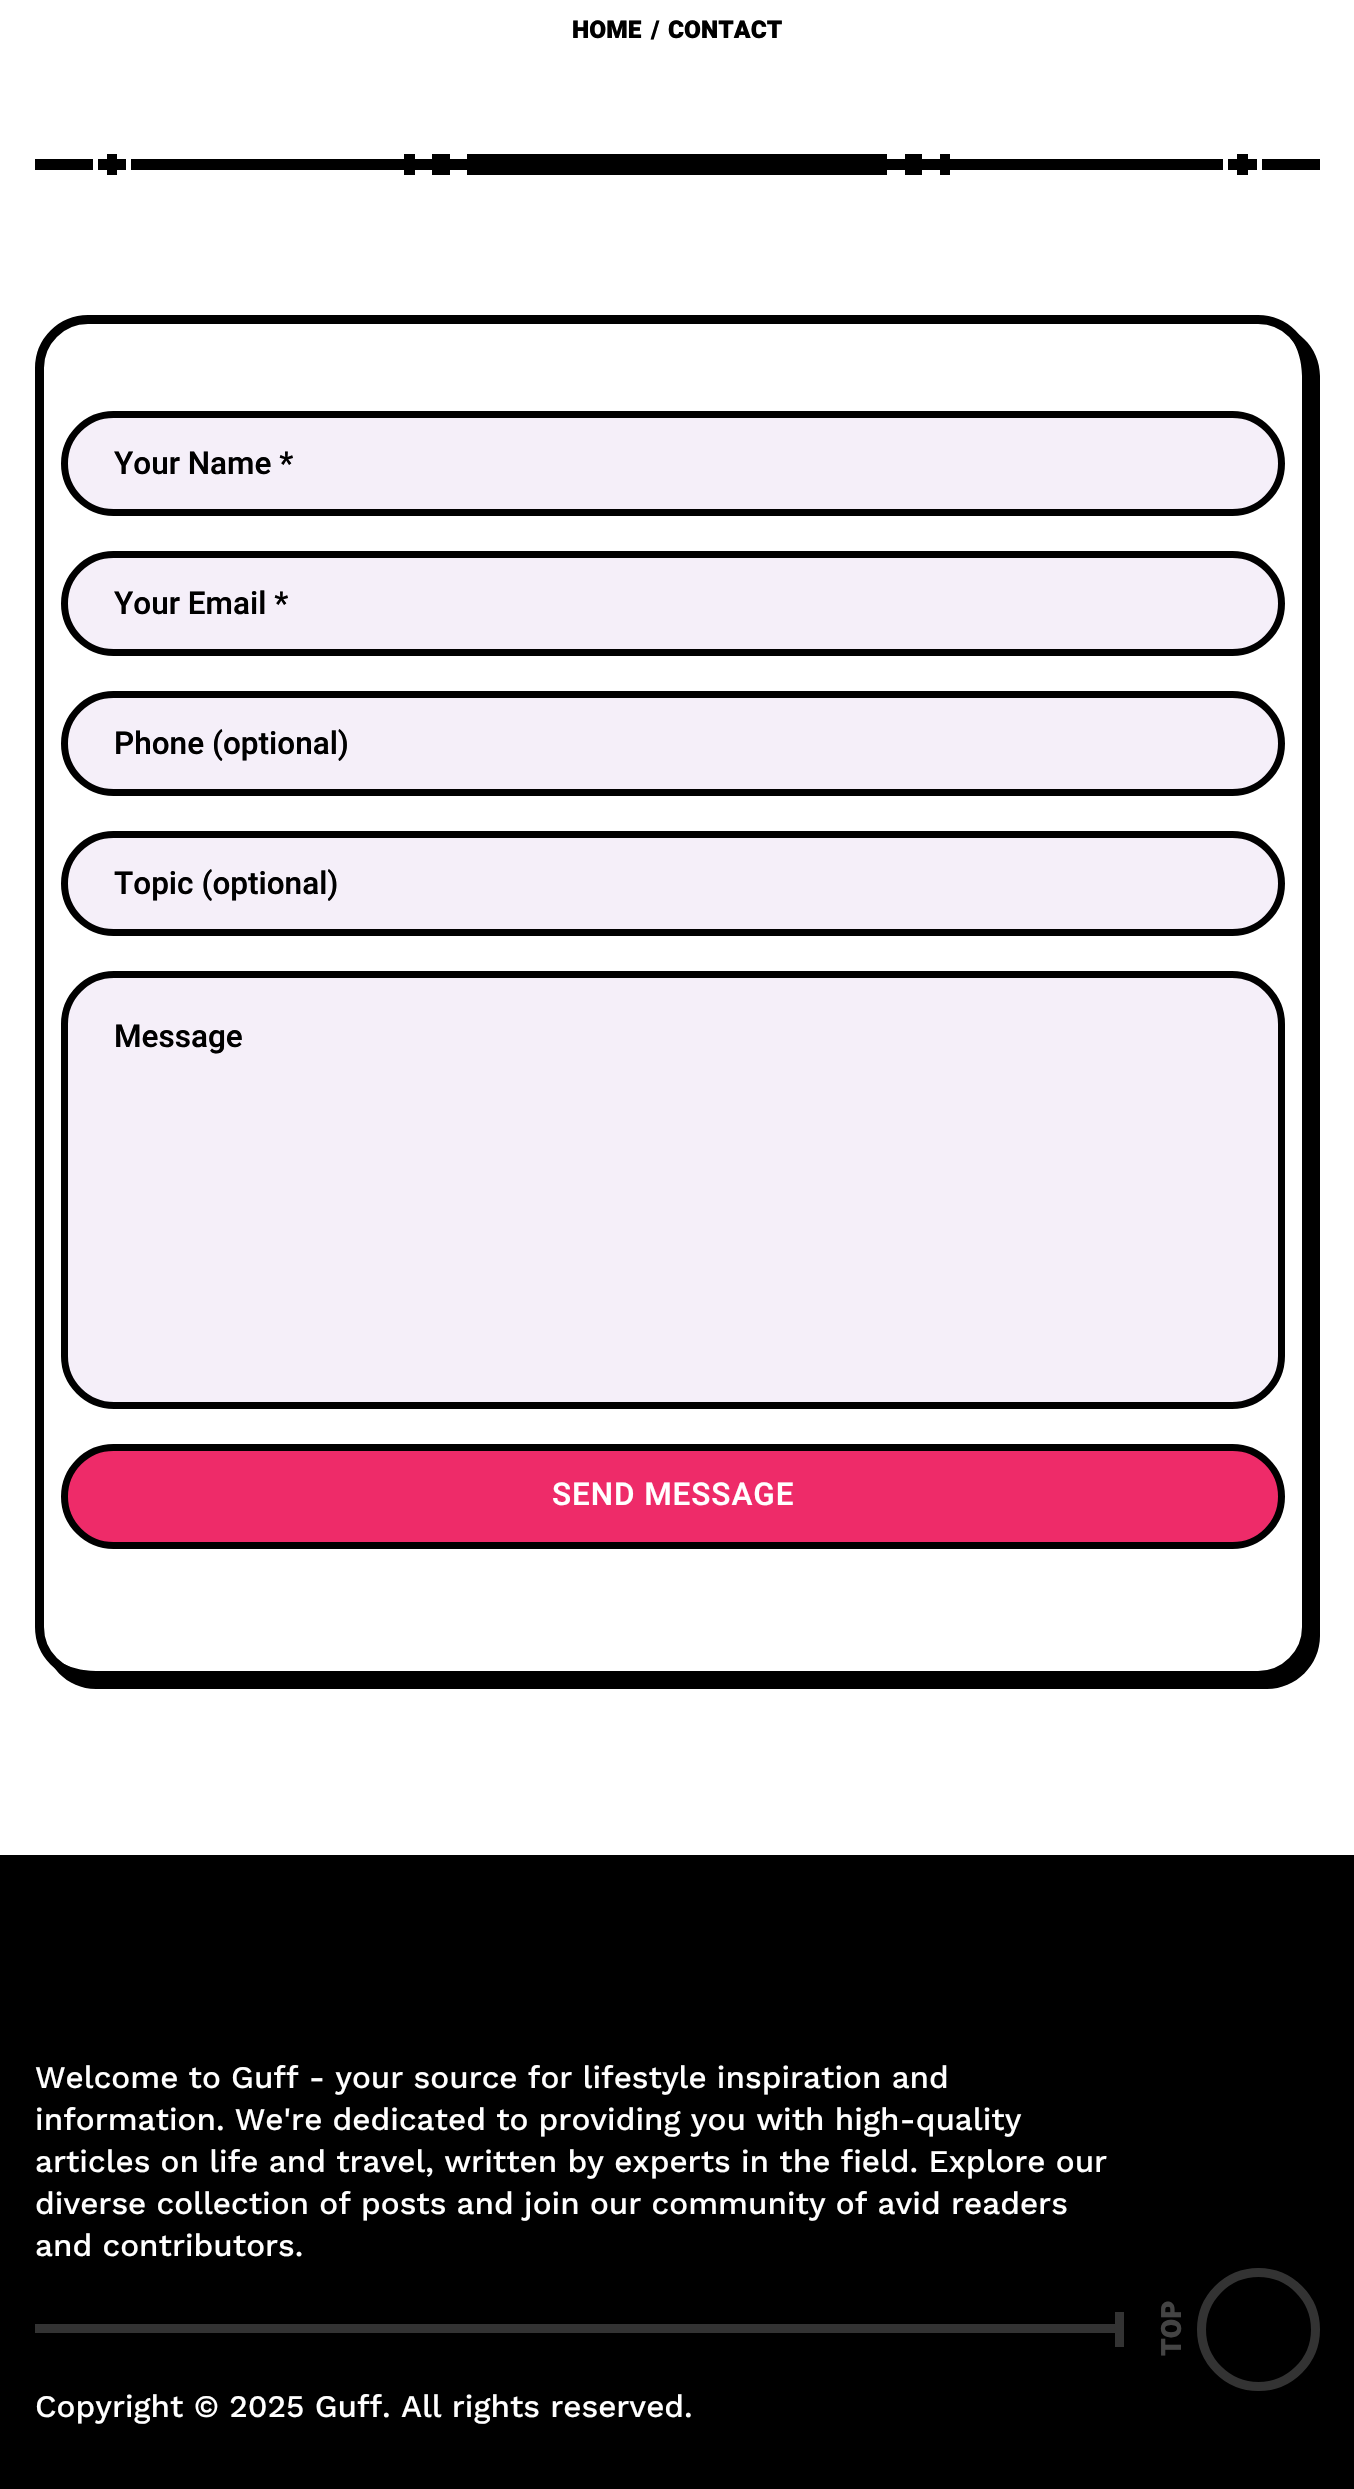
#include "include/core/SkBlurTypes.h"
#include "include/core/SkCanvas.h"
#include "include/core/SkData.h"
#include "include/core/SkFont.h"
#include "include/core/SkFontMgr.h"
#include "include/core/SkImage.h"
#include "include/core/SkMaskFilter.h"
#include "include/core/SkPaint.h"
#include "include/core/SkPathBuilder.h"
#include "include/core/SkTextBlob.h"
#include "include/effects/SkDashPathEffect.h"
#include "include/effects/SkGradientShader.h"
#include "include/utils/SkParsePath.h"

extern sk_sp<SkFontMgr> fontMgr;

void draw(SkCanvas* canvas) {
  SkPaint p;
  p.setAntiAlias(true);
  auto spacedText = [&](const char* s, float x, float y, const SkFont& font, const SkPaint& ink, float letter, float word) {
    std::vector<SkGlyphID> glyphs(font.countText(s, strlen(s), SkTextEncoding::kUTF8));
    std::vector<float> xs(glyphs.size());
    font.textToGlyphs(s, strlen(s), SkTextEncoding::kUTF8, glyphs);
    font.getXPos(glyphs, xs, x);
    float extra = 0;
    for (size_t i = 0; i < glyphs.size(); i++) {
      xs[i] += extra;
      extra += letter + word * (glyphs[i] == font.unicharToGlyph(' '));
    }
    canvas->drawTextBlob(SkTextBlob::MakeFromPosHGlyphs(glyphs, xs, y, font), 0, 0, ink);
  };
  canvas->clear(SK_ColorWHITE);
  p.setColor(SK_ColorBLACK);
  canvas->drawRect(SkRect::MakeLTRB(107, 154, 117, 175), p);
  canvas->drawRect(SkRect::MakeLTRB(467, 154, 887, 175), p);
  canvas->drawRect(SkRect::MakeLTRB(940, 154, 950, 175), p);
  canvas->drawRect(SkRect::MakeLTRB(404, 154, 415, 175), p);
  canvas->drawRect(SkRect::MakeLTRB(905, 154, 922, 175), p);
  canvas->drawRect(SkRect::MakeLTRB(432, 154, 450, 175), p);
  canvas->drawRect(SkRect::MakeLTRB(1237, 154, 1248, 175), p);
  canvas->drawRect(SkRect::MakeLTRB(35, 159, 1320, 170), p);
  p.setColor(SK_ColorWHITE);
  canvas->drawRect(SkRect::MakeLTRB(126, 159, 131, 170), p);
  canvas->drawRect(SkRect::MakeLTRB(93, 159, 98, 170), p);
  canvas->drawRect(SkRect::MakeLTRB(1257, 159, 1262, 170), p);
  canvas->drawRect(SkRect::MakeLTRB(1223, 159, 1228, 170), p);
  p.setStyle(SkPaint::kStroke_Style);
  p.setStrokeWidth(9);
  p.setColor(SK_ColorBLACK);
  canvas->drawRoundRect(SkRect::MakeLTRB(39.5f, 319.5f, 1306.5f, 1675.5f), 48.5f, 48.5f, p);
  p.setStyle(SkPaint::kFill_Style);
  p.setColor(SkColorSetRGB(245, 239, 249));
  canvas->drawRoundRect(SkRect::MakeLTRB(64.5f, 414.5f, 1281.5f, 512.5f), 49, 49, p);
  p.setStyle(SkPaint::kStroke_Style);
  p.setStrokeWidth(7);
  p.setColor(SK_ColorBLACK);
  canvas->drawRoundRect(SkRect::MakeLTRB(64.5f, 414.5f, 1281.5f, 512.5f), 49, 49, p);
  p.setStyle(SkPaint::kFill_Style);
  p.setColor(SkColorSetRGB(245, 239, 249));
  canvas->drawRoundRect(SkRect::MakeLTRB(64.5f, 554.5f, 1281.5f, 652.5f), 49, 49, p);
  p.setStyle(SkPaint::kStroke_Style);
  p.setColor(SK_ColorBLACK);
  canvas->drawRoundRect(SkRect::MakeLTRB(64.5f, 554.5f, 1281.5f, 652.5f), 49, 49, p);
  p.setStyle(SkPaint::kFill_Style);
  p.setColor(SkColorSetRGB(245, 239, 249));
  canvas->drawRoundRect(SkRect::MakeLTRB(64.5f, 694.5f, 1281.5f, 792.5f), 49, 49, p);
  p.setStyle(SkPaint::kStroke_Style);
  p.setColor(SK_ColorBLACK);
  canvas->drawRoundRect(SkRect::MakeLTRB(64.5f, 694.5f, 1281.5f, 792.5f), 49, 49, p);
  p.setStyle(SkPaint::kFill_Style);
  p.setColor(SkColorSetRGB(245, 239, 249));
  canvas->drawRoundRect(SkRect::MakeLTRB(64.5f, 834.5f, 1281.5f, 932.5f), 49, 49, p);
  p.setStyle(SkPaint::kStroke_Style);
  p.setColor(SK_ColorBLACK);
  canvas->drawRoundRect(SkRect::MakeLTRB(64.5f, 834.5f, 1281.5f, 932.5f), 49, 49, p);
  p.setStyle(SkPaint::kFill_Style);
  p.setColor(SkColorSetRGB(245, 239, 249));
  canvas->drawRoundRect(SkRect::MakeLTRB(64.5f, 974.5f, 1281.5f, 1405.5f), 49.5f, 49.5f, p);
  p.setStyle(SkPaint::kStroke_Style);
  p.setColor(SK_ColorBLACK);
  canvas->drawRoundRect(SkRect::MakeLTRB(64.5f, 974.5f, 1281.5f, 1405.5f), 49.5f, 49.5f, p);
  p.setStyle(SkPaint::kFill_Style);
  p.setColor(SkColorSetRGB(238, 43, 105));
  canvas->drawRoundRect(SkRect::MakeLTRB(64.5f, 1447.5f, 1281.5f, 1545.5f), 49, 49, p);
  p.setStyle(SkPaint::kStroke_Style);
  p.setColor(SK_ColorBLACK);
  canvas->drawRoundRect(SkRect::MakeLTRB(64.5f, 1447.5f, 1281.5f, 1545.5f), 49, 49, p);
  p.setStyle(SkPaint::kFill_Style);
  canvas->drawRect(SkRect::MakeLTRB(0, 1855, 1354, 2489), p);
  p.setColor(SkColorSetRGB(51, 51, 51));
  canvas->drawRect(SkRect::MakeLTRB(35, 2324, 1115, 2333), p);
  canvas->drawRect(SkRect::MakeLTRB(1115, 2312, 1124, 2347), p);
  p.setStyle(SkPaint::kStroke_Style);
  p.setStrokeWidth(9);
  canvas->drawCircle(1258.5f, 2329.5f, 57, p);
  SkFont font1(fontMgr->matchFamilyStyle("Heebo", SkFontStyle(900, SkFontStyle::kNormal_Width, SkFontStyle::kUpright_Slant)), 24.5f);
  font1.setSubpixel(true);
  p.setStyle(SkPaint::kFill_Style);
  p.setColor(SK_ColorBLACK);
  canvas->drawString("HOME", 572, 38, font1, p);
  canvas->drawString("/", 651, 38, font1, p);
  canvas->drawString("CONTACT", 668, 38, font1, p);
  SkFont font2(fontMgr->matchFamilyStyle("Heebo", SkFontStyle(600, SkFontStyle::kNormal_Width, SkFontStyle::kUpright_Slant)), 31.5f);
  font2.setSubpixel(true);
  canvas->drawString("Your Name *", 114, 474, font2, p);
  canvas->drawString("Your Email *", 114, 614, font2, p);
  canvas->drawString("Phone (optional)", 114, 754, font2, p);
  canvas->drawString("Topic (optional)", 114, 894, font2, p);
  canvas->drawString("Message", 114, 1047, font2, p);
  p.setColor(SK_ColorWHITE);
  spacedText("SEND MESSAGE", 552, 1505, font2, p, 0.9f, 0);
  p.setColor(SK_ColorBLACK);
  canvas->drawPath(SkPathBuilder(SkPathFillType::kEvenOdd).moveTo(44, 324).lineTo(1267, 324).cubicTo(1296, 324, 1320, 347, 1320, 376).lineTo(1320, 1636).cubicTo(1320, 1665, 1296, 1689, 1267, 1689).lineTo(96, 1689).cubicTo(67, 1689, 44, 1665, 44, 1636).close().moveTo(44, 324).lineTo(1267, 324).cubicTo(1286, 324, 1302, 347, 1302, 376).lineTo(1302, 1636).cubicTo(1302, 1656, 1286, 1671, 1267, 1671).lineTo(96, 1671).cubicTo(67, 1671, 44, 1656, 44, 1636).close().detach(), p);
  SkFont font3(fontMgr->matchFamilyStyle("Work Sans", SkFontStyle(500, SkFontStyle::kNormal_Width, SkFontStyle::kUpright_Slant)), 31.5f);
  font3.setSubpixel(true);
  p.setColor(SK_ColorWHITE);
  canvas->drawString("Welcome to Guff - your source for lifestyle inspiration and", 35, 2088, font3, p);
  canvas->drawString("information. We're dedicated to providing you with high-quality", 35, 2130, font3, p);
  canvas->drawString("articles on life and travel, written by experts in the field. Explore our", 35, 2172, font3, p);
  canvas->drawString("diverse collection of posts and join our community of avid readers", 35, 2214, font3, p);
  canvas->drawString("and contributors.", 35, 2256, font3, p);
  SkFont font4(fontMgr->matchFamilyStyle("Heebo", SkFontStyle(900, SkFontStyle::kNormal_Width, SkFontStyle::kUpright_Slant)), 28);
  font4.setSubpixel(true);
  p.setColor(SkColorSetRGB(68, 68, 68));
  canvas->save();
  canvas->rotate(-90, 1181, 2356);
  canvas->drawString("TOP", 1181, 2356, font4, p);
  canvas->restore();
  p.setColor(SK_ColorWHITE);
  canvas->drawString("Copyright © 2025 Guff. All rights reserved.", 35, 2417, font3, p);
}
